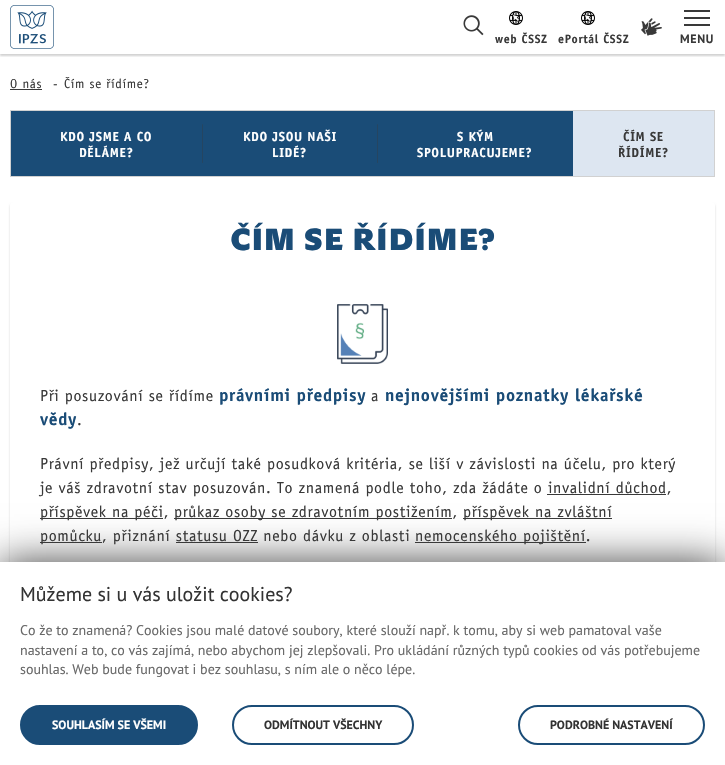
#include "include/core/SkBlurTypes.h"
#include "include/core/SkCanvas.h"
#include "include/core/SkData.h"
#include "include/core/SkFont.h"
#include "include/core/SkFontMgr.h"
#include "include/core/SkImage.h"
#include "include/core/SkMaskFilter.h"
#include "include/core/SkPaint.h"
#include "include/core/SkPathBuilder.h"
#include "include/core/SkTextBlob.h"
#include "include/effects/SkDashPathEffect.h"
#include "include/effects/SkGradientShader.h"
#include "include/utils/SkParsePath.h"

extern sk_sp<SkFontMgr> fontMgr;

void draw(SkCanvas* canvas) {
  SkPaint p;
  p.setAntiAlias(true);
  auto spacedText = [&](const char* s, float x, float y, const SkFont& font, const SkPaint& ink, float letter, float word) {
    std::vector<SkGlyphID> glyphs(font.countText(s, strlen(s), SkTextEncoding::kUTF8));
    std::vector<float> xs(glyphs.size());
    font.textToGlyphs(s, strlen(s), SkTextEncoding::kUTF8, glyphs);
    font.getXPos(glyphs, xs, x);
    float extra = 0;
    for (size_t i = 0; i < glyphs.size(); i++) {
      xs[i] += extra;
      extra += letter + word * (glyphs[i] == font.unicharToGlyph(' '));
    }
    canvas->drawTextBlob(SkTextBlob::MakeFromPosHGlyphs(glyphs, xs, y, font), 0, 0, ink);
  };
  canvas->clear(SK_ColorWHITE);
  canvas->save();
  canvas->clipRect(SkRect::MakeLTRB(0, 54, 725, 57));
  p.setColor(SkColorSetARGB(46, 0, 0, 0));
  p.setMaskFilter(SkMaskFilter::MakeBlur(kNormal_SkBlurStyle, 1));
  canvas->drawRect(SkRect::MakeLTRB(0, 2, 725, 56), p);
  p.setMaskFilter(nullptr);
  canvas->restore();
  canvas->drawImageRect(SkImages::DeferredFromEncodedData(SkData::MakeFromFileName("images/1.png")), SkRect::MakeLTRB(10, 5, 54, 49), SkSamplingOptions());
  canvas->drawImageRect(SkImages::DeferredFromEncodedData(SkData::MakeFromFileName("images/2.png")), SkRect::MakeLTRB(463, 15, 484, 36), SkSamplingOptions());
  canvas->drawImageRect(SkImages::DeferredFromEncodedData(SkData::MakeFromFileName("images/3.png")), SkRect::MakeLTRB(641, 18, 662, 36), SkSamplingOptions());
  canvas->drawImageRect(SkImages::DeferredFromEncodedData(SkData::MakeFromFileName("images/4.png")), SkRect::MakeLTRB(509, 11, 523, 25), SkSamplingOptions());
  canvas->drawImageRect(SkImages::DeferredFromEncodedData(SkData::MakeFromFileName("images/4.png")), SkRect::MakeLTRB(581, 11, 595, 25), SkSamplingOptions());
  p.setColor(SkColorSetRGB(57, 57, 57));
  canvas->drawRect(SkRect::MakeLTRB(684, 10, 710, 12), p);
  canvas->drawRect(SkRect::MakeLTRB(684, 17, 710, 19), p);
  canvas->drawRect(SkRect::MakeLTRB(684, 24, 710, 26), p);
  canvas->drawRect(SkRect::MakeLTRB(10, 89, 42, 90), p);
  p.setStyle(SkPaint::kStroke_Style);
  p.setStrokeWidth(1);
  p.setColor(SkColorSetRGB(209, 209, 209));
  canvas->drawRect(SkRect::MakeLTRB(10.5f, 110.5f, 714.5f, 176.5f), p);
  p.setStyle(SkPaint::kFill_Style);
  p.setColor(SkColorSetRGB(26, 76, 119));
  canvas->drawRect(SkRect::MakeLTRB(11, 111, 573, 176), p);
  p.setColor(SkColorSetRGB(37, 69, 97));
  canvas->drawRoundRect(SkRect::MakeLTRB(202, 124, 203, 163), 0.5f, 0.5f, p);
  canvas->drawRoundRect(SkRect::MakeLTRB(377, 124, 378, 163), 0.5f, 0.5f, p);
  p.setColor(SkColorSetRGB(221, 230, 241));
  canvas->drawRect(SkRect::MakeLTRB(573, 111, 714, 176), p);
  p.setColor(SkColorSetARGB(46, 0, 0, 0));
  p.setMaskFilter(SkMaskFilter::MakeBlur(kNormal_SkBlurStyle, 1));
  canvas->drawRoundRect(SkRect::MakeLTRB(10, 204, 715, 583), 3, 3, p);
  p.setMaskFilter(nullptr);
  p.setColor(SK_ColorWHITE);
  canvas->drawRoundRect(SkRect::MakeLTRB(10, 202, 715, 581), 3, 3, p);
  canvas->drawImageRect(SkImages::DeferredFromEncodedData(SkData::MakeFromFileName("images/5.png")), SkRect::MakeLTRB(337, 304, 388, 364), SkSamplingOptions());
  p.setColor(SkColorSetRGB(57, 57, 57));
  canvas->drawRect(SkRect::MakeLTRB(547, 494, 666, 495), p);
  canvas->drawRect(SkRect::MakeLTRB(40, 518, 163, 519), p);
  canvas->drawRect(SkRect::MakeLTRB(174, 518, 452, 519), p);
  canvas->drawRect(SkRect::MakeLTRB(463, 518, 612, 519), p);
  canvas->drawRect(SkRect::MakeLTRB(40, 542, 102, 543), p);
  canvas->drawRect(SkRect::MakeLTRB(415, 542, 586, 543), p);
  canvas->drawRect(SkRect::MakeLTRB(176, 542, 258, 543), p);
  p.setColor(SkColorSetRGB(59, 59, 59));
  p.setMaskFilter(SkMaskFilter::MakeBlur(kNormal_SkBlurStyle, 20));
  canvas->drawRect(SkRect::MakeLTRB(0, 563, 725, 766), p);
  p.setMaskFilter(nullptr);
  p.setColor(SK_ColorWHITE);
  canvas->drawRect(SkRect::MakeLTRB(0, 562, 725, 765), p);
  p.setColor(SkColorSetRGB(26, 76, 119));
  canvas->drawRoundRect(SkRect::MakeLTRB(21, 706, 197, 744), 19, 19, p);
  p.setStyle(SkPaint::kStroke_Style);
  p.setStrokeWidth(2);
  canvas->drawRoundRect(SkRect::MakeLTRB(21, 706, 197, 744), 19, 19, p);
  canvas->drawRoundRect(SkRect::MakeLTRB(233, 706, 413, 744), 19, 19, p);
  canvas->drawRoundRect(SkRect::MakeLTRB(519, 706, 704, 744), 19, 19, p);
  SkFont font1(fontMgr->matchFamilyStyle("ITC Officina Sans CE", SkFontStyle::Bold()), 12);
  font1.setSubpixel(true);
  p.setStyle(SkPaint::kFill_Style);
  p.setColor(SkColorSetRGB(57, 57, 57));
  spacedText("web ČSSZ", 495, 43, font1, p, 0.65f, 0);
  spacedText("ePortál ČSSZ", 558, 43, font1, p, 0.65f, 0);
  SkFont font2(fontMgr->matchFamilyStyle("PT Sans", SkFontStyle::Bold()), 12);
  font2.setSubpixel(true);
  spacedText("MENU", 680, 43, font2, p, 0.65f, 0);
  SkFont font3(fontMgr->matchFamilyStyle("ITC Officina Sans CE", SkFontStyle::Normal()), 13);
  font3.setSubpixel(true);
  spacedText("O nás", 10, 88, font3, p, 0.65f, 0);
  spacedText("-", 53, 88, font3, p, 0.65f, 0);
  spacedText("Čím se řídíme?", 64, 88, font3, p, 0.65f, 0);
  SkFont font4(fontMgr->matchFamilyStyle("ITC Officina Sans CE", SkFontStyle::Bold()), 13);
  font4.setSubpixel(true);
  p.setColor(SK_ColorWHITE);
  spacedText("KDO JSME A CO", 60, 141, font4, p, 0.65f, 0);
  spacedText("DĚLÁME?", 79, 157, font4, p, 0.65f, 0);
  spacedText("KDO JSOU NAŠI", 243, 141, font4, p, 0.65f, 0);
  spacedText("LIDÉ?", 272, 157, font4, p, 0.65f, 0);
  spacedText("S KÝM", 457, 141, font4, p, 0.65f, 0);
  spacedText("SPOLUPRACUJEME?", 417, 157, font4, p, 0.65f, 0);
  p.setColor(SkColorSetRGB(57, 57, 57));
  spacedText("ČÍM SE", 623, 141, font4, p, 0.65f, 0);
  spacedText("ŘÍDÍME?", 618, 157, font4, p, 0.65f, 0);
  SkFont font5(fontMgr->matchFamilyStyle("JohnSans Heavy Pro", SkFontStyle::Bold()), 30);
  font5.setSubpixel(true);
  p.setColor(SkColorSetRGB(26, 76, 119));
  spacedText("ČÍM SE ŘÍDÍME?", 230, 250, font5, p, 0.65f, 0);
  SkFont font6(fontMgr->matchFamilyStyle("ITC Officina Sans CE", SkFontStyle::Normal()), 16);
  font6.setSubpixel(true);
  p.setColor(SkColorSetRGB(57, 57, 57));
  spacedText("Při posuzování se řídíme", 40, 401, font6, p, 0.65f, 0);
  SkFont font7(fontMgr->matchFamilyStyle("ITC Officina Sans CE", SkFontStyle::Bold()), 17.6f);
  font7.setSubpixel(true);
  p.setColor(SkColorSetRGB(26, 76, 119));
  spacedText("právními předpisy", 219, 401, font7, p, 0.65f, 0);
  p.setColor(SkColorSetRGB(57, 57, 57));
  spacedText("a", 371, 401, font6, p, 0.65f, 0);
  p.setColor(SkColorSetRGB(26, 76, 119));
  spacedText("nejnovějšími poznatky lékařské", 385, 401, font7, p, 0.65f, 0);
  spacedText("vědy", 40, 425, font7, p, 0.65f, 0);
  p.setColor(SkColorSetRGB(57, 57, 57));
  spacedText(".", 77, 425, font6, p, 0.65f, 0);
  spacedText("Právní předpisy, jež určují také posudková kritéria, se liší v závislosti na účelu, pro který", 40, 469, font6, p, 0.65f, 0);
  spacedText("je váš zdravotní stav posuzován. To znamená podle toho, zda žádáte o invalidní důchod,", 40, 493, font6, p, 0.65f, 0);
  spacedText("příspěvek na péči,", 40, 517, font6, p, 0.65f, 0);
  spacedText("průkaz osoby se zdravotním postižením,", 174, 517, font6, p, 0.65f, 0);
  spacedText("příspěvek na zvláštní", 463, 517, font6, p, 0.65f, 0);
  spacedText("pomůcku, přiznání statusu OZZ nebo dávku z oblasti", 40, 541, font6, p, 0.65f, 0);
  spacedText("nemocenského pojištění.", 415, 541, font6, p, 0.65f, 0);
  SkFont font8(fontMgr->matchFamilyStyle("PT Sans", SkFontStyle::Normal()), 20);
  font8.setSubpixel(true);
  p.setColor(SkColorSetRGB(51, 51, 51));
  canvas->drawString("Můžeme si u vás uložit cookies?", 20, 601, font8, p);
  SkFont font9(fontMgr->matchFamilyStyle("PT Sans", SkFontStyle::Normal()), 14);
  font9.setSubpixel(true);
  p.setColor(SkColorSetRGB(104, 104, 104));
  canvas->drawString("Co že to znamená? Cookies jsou malé datové soubory, které slouží např. k tomu, aby si web pamatoval vaše", 20, 635, font9, p);
  canvas->drawString("nastavení a to, co vás zajímá, nebo abychom jej zlepšovali. Pro ukládání různých typů cookies od vás potřebujeme", 20, 655, font9, p);
  canvas->drawString("souhlas. Web bude fungovat i bez souhlasu, s ním ale o něco lépe.", 20, 674, font9, p);
  p.setColor(SK_ColorWHITE);
  canvas->drawString("SOUHLASÍM SE VŠEMI", 52, 729, font2, p);
  p.setColor(SkColorSetRGB(51, 51, 51));
  canvas->drawString("ODMÍTNOUT VŠECHNY", 264, 729, font2, p);
  canvas->drawString("PODROBNÉ NASTAVENÍ", 550, 729, font2, p);
}
